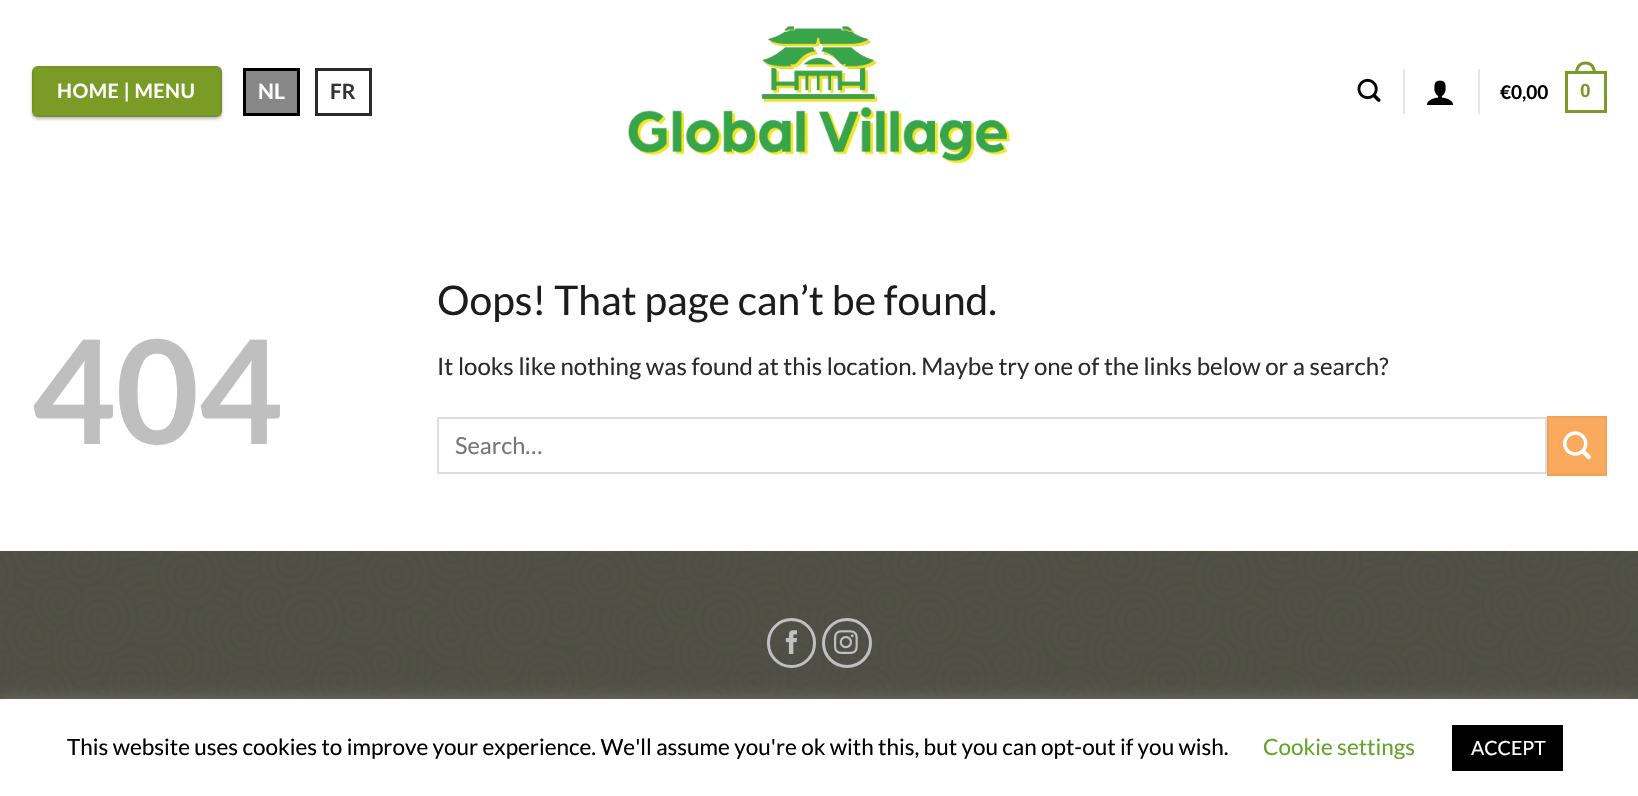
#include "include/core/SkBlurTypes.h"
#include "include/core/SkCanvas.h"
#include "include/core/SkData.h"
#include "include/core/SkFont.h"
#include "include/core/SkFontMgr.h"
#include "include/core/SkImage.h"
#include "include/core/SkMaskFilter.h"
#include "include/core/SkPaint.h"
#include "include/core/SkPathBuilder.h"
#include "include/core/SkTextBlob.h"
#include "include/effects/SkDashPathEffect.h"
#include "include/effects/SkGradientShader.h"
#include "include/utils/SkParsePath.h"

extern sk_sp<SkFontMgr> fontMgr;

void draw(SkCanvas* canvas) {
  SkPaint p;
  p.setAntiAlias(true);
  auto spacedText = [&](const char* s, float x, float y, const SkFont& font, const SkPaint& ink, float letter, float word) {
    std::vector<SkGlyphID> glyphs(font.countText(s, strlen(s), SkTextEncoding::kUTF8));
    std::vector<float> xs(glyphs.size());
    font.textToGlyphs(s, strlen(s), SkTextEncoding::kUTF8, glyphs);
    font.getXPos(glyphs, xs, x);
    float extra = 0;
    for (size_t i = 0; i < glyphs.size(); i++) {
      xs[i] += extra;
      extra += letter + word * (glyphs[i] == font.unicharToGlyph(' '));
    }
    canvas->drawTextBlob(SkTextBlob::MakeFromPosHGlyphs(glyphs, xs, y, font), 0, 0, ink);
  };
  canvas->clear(SK_ColorWHITE);
  p.setColor(SkColorSetARGB(61, 0, 0, 0));
  p.setMaskFilter(SkMaskFilter::MakeBlur(kNormal_SkBlurStyle, 1.5f));
  canvas->drawRoundRect(SkRect::MakeLTRB(32, 68, 222, 119), 6, 6, p);
  p.setMaskFilter(nullptr);
  p.setColor(SkColorSetARGB(31, 0, 0, 0));
  p.setMaskFilter(SkMaskFilter::MakeBlur(kNormal_SkBlurStyle, 2));
  canvas->drawRoundRect(SkRect::MakeLTRB(35, 71, 219, 116), 3, 3, p);
  p.setMaskFilter(nullptr);
  p.setColor(SkColorSetRGB(122, 155, 38));
  canvas->drawRoundRect(SkRect::MakeLTRB(32, 66, 222, 117), 6, 6, p);
  p.setStyle(SkPaint::kStroke_Style);
  p.setStrokeWidth(2);
  p.setColor(SkColorSetARGB(13, 0, 0, 0));
  canvas->drawRect(SkRect::MakeLTRB(33, 67, 221, 116), p);
  p.setStyle(SkPaint::kFill_Style);
  p.setColor(SkColorSetRGB(135, 135, 135));
  canvas->drawRect(SkRect::MakeLTRB(244.5f, 69.5f, 298.5f, 114.5f), p);
  p.setStyle(SkPaint::kStroke_Style);
  p.setStrokeWidth(3);
  p.setColor(SK_ColorBLACK);
  canvas->drawRect(SkRect::MakeLTRB(244.5f, 69.5f, 298.5f, 114.5f), p);
  p.setColor(SkColorSetRGB(43, 43, 43));
  canvas->drawRect(SkRect::MakeLTRB(316.5f, 69.5f, 370.5f, 114.5f), p);
  canvas->drawImageRect(SkImages::DeferredFromEncodedData(SkData::MakeFromFileName("images/1.png")), SkRect::MakeLTRB(628, 26, 1010, 164), SkSamplingOptions());
  canvas->drawImageRect(SkImages::DeferredFromEncodedData(SkData::MakeFromFileName("images/2.png")), SkRect::MakeLTRB(1357, 78, 1381, 102), SkSamplingOptions());
  p.setStyle(SkPaint::kFill_Style);
  p.setColor(SkColorSetRGB(230, 230, 230));
  canvas->drawRect(SkRect::MakeLTRB(1403, 69, 1405, 114), p);
  canvas->drawImageRect(SkImages::DeferredFromEncodedData(SkData::MakeFromFileName("images/3.png")), SkRect::MakeLTRB(1426, 80, 1454, 105), SkSamplingOptions());
  canvas->drawRect(SkRect::MakeLTRB(1478, 69, 1480, 114), p);
  p.setStyle(SkPaint::kStroke_Style);
  p.setColor(SkColorSetRGB(122, 155, 38));
  canvas->drawRect(SkRect::MakeLTRB(1566.5f, 72.5f, 1605.5f, 111.5f), p);
  p.setStyle(SkPaint::kFill_Style);
  canvas->drawPath(SkPathBuilder(SkPathFillType::kEvenOdd).moveTo(1585.5f, 61.5f).cubicTo(1592.5f, 61.5f, 1596, 67, 1596, 73.5f).lineTo(1575, 73.5f).cubicTo(1575, 67, 1578.5f, 61.5f, 1585.5f, 61.5f).close().moveTo(1585.5f, 64.5f).cubicTo(1591, 64.5f, 1593, 69, 1593, 73.5f).lineTo(1578, 73.5f).cubicTo(1578, 69, 1580, 64.5f, 1585.5f, 64.5f).close().detach(), p);
  p.setStyle(SkPaint::kStroke_Style);
  p.setStrokeWidth(2);
  p.setColor(SkColorSetRGB(221, 221, 221));
  canvas->drawRect(SkRect::MakeLTRB(438, 418, 1546, 473), p);
  p.setStyle(SkPaint::kFill_Style);
  p.setColor(SkColorSetRGB(249, 170, 92));
  canvas->drawRect(SkRect::MakeLTRB(1548, 417, 1606, 475), p);
  p.setStyle(SkPaint::kStroke_Style);
  p.setColor(SkColorSetRGB(237, 162, 87));
  canvas->drawRect(SkRect::MakeLTRB(1548, 417, 1606, 475), p);
  canvas->drawImageRect(SkImages::DeferredFromEncodedData(SkData::MakeFromFileName("images/4.png")), SkRect::MakeLTRB(1563, 431, 1591, 460), SkSamplingOptions());
  canvas->drawImageRect(SkImages::DeferredFromEncodedData(SkData::MakeFromFileName("images/5.png")), SkRect::MakeLTRB(0, 550, 1638, 699), SkSamplingOptions());
  p.setStrokeWidth(3);
  p.setColor(SkColorSetRGB(192, 192, 192));
  canvas->drawRoundRect(SkRect::MakeLTRB(768.5f, 619.5f, 814.5f, 666.5f), 23, 23, p);
  canvas->drawImageRect(SkImages::DeferredFromEncodedData(SkData::MakeFromFileName("images/6.png")), SkRect::MakeLTRB(785, 630, 797, 654), SkSamplingOptions());
  canvas->drawCircle(847, 643, 23.5f, p);
  canvas->drawImageRect(SkImages::DeferredFromEncodedData(SkData::MakeFromFileName("images/7.png")), SkRect::MakeLTRB(834, 630, 858, 654), SkSamplingOptions());
  p.setStyle(SkPaint::kFill_Style);
  p.setColor(SkColorSetARGB(77, 172, 171, 171));
  p.setMaskFilter(SkMaskFilter::MakeBlur(kNormal_SkBlurStyle, 7.5f));
  canvas->drawRect(SkRect::MakeLTRB(0, 698, 1638, 795), p);
  p.setMaskFilter(nullptr);
  p.setColor(SK_ColorWHITE);
  canvas->drawRect(SkRect::MakeLTRB(0, 699, 1638, 796), p);
  p.setColor(SK_ColorBLACK);
  canvas->drawRect(SkRect::MakeLTRB(1452, 725, 1563, 771), p);
  SkFont font1(fontMgr->matchFamilyStyle("Lato", SkFontStyle::Bold()), 19.75f);
  font1.setSubpixel(true);
  p.setColor(SK_ColorWHITE);
  spacedText("HOME | MENU", 57, 98, font1, p, 0.5f, 0);
  SkFont font2(fontMgr->matchFamilyStyle("Lato", SkFontStyle::Bold()), 21);
  font2.setSubpixel(true);
  canvas->drawString("NL", 258, 99, font2, p);
  p.setColor(SkColorSetRGB(51, 51, 51));
  canvas->drawString("FR", 330, 99, font2, p);
  SkFont font3(fontMgr->matchFamilyStyle("Lato", SkFontStyle::Bold()), 19);
  font3.setSubpixel(true);
  p.setColor(SK_ColorBLACK);
  canvas->drawString("€0,00", 1500, 99, font3, p);
  SkFont font4(fontMgr->matchFamilyStyle("Liberation Sans", SkFontStyle::Bold()), 19);
  font4.setSubpixel(true);
  p.setColor(SkColorSetRGB(122, 155, 38));
  canvas->drawString("0", 1580, 97, font4, p);
  SkFont font5(fontMgr->matchFamilyStyle("Lato", SkFontStyle::Bold()), 144);
  font5.setSubpixel(true);
  p.setColor(SkColorSetRGB(191, 191, 191));
  canvas->drawString("404", 32, 444, font5, p);
  SkFont font6(fontMgr->matchFamilyStyle("Lato", SkFontStyle::Normal()), 40.75f);
  font6.setSubpixel(true);
  p.setColor(SkColorSetRGB(28, 28, 28));
  canvas->drawString("Oops! That page can’t be found.", 437, 315, font6, p);
  SkFont font7(fontMgr->matchFamilyStyle("Lato", SkFontStyle::Normal()), 24);
  font7.setSubpixel(true);
  p.setColor(SkColorSetRGB(43, 43, 43));
  canvas->drawString("It looks like nothing was found at this location. Maybe try one of the links below or a search?", 437, 375, font7, p);
  SkFont font8(fontMgr->matchFamilyStyle("Lato", SkFontStyle::Normal()), 23.5f);
  font8.setSubpixel(true);
  p.setColor(SkColorSetRGB(117, 117, 117));
  canvas->drawString("Search…", 455, 454, font8, p);
  SkFont font9(fontMgr->matchFamilyStyle("Lato", SkFontStyle::Normal()), 22.5f);
  font9.setSubpixel(true);
  p.setColor(SK_ColorBLACK);
  canvas->drawString("This website uses cookies to improve your experience. We'll assume you're ok with this, but you can opt-out if you wish.", 67, 755, font9, p);
  p.setColor(SkColorSetRGB(98, 163, 41));
  canvas->drawString("Cookie settings", 1263, 755, font9, p);
  SkFont font10(fontMgr->matchFamilyStyle("Lato", SkFontStyle::Normal()), 19.5f);
  font10.setSubpixel(true);
  p.setColor(SK_ColorWHITE);
  canvas->drawString("ACCEPT", 1471, 755, font10, p);
}
